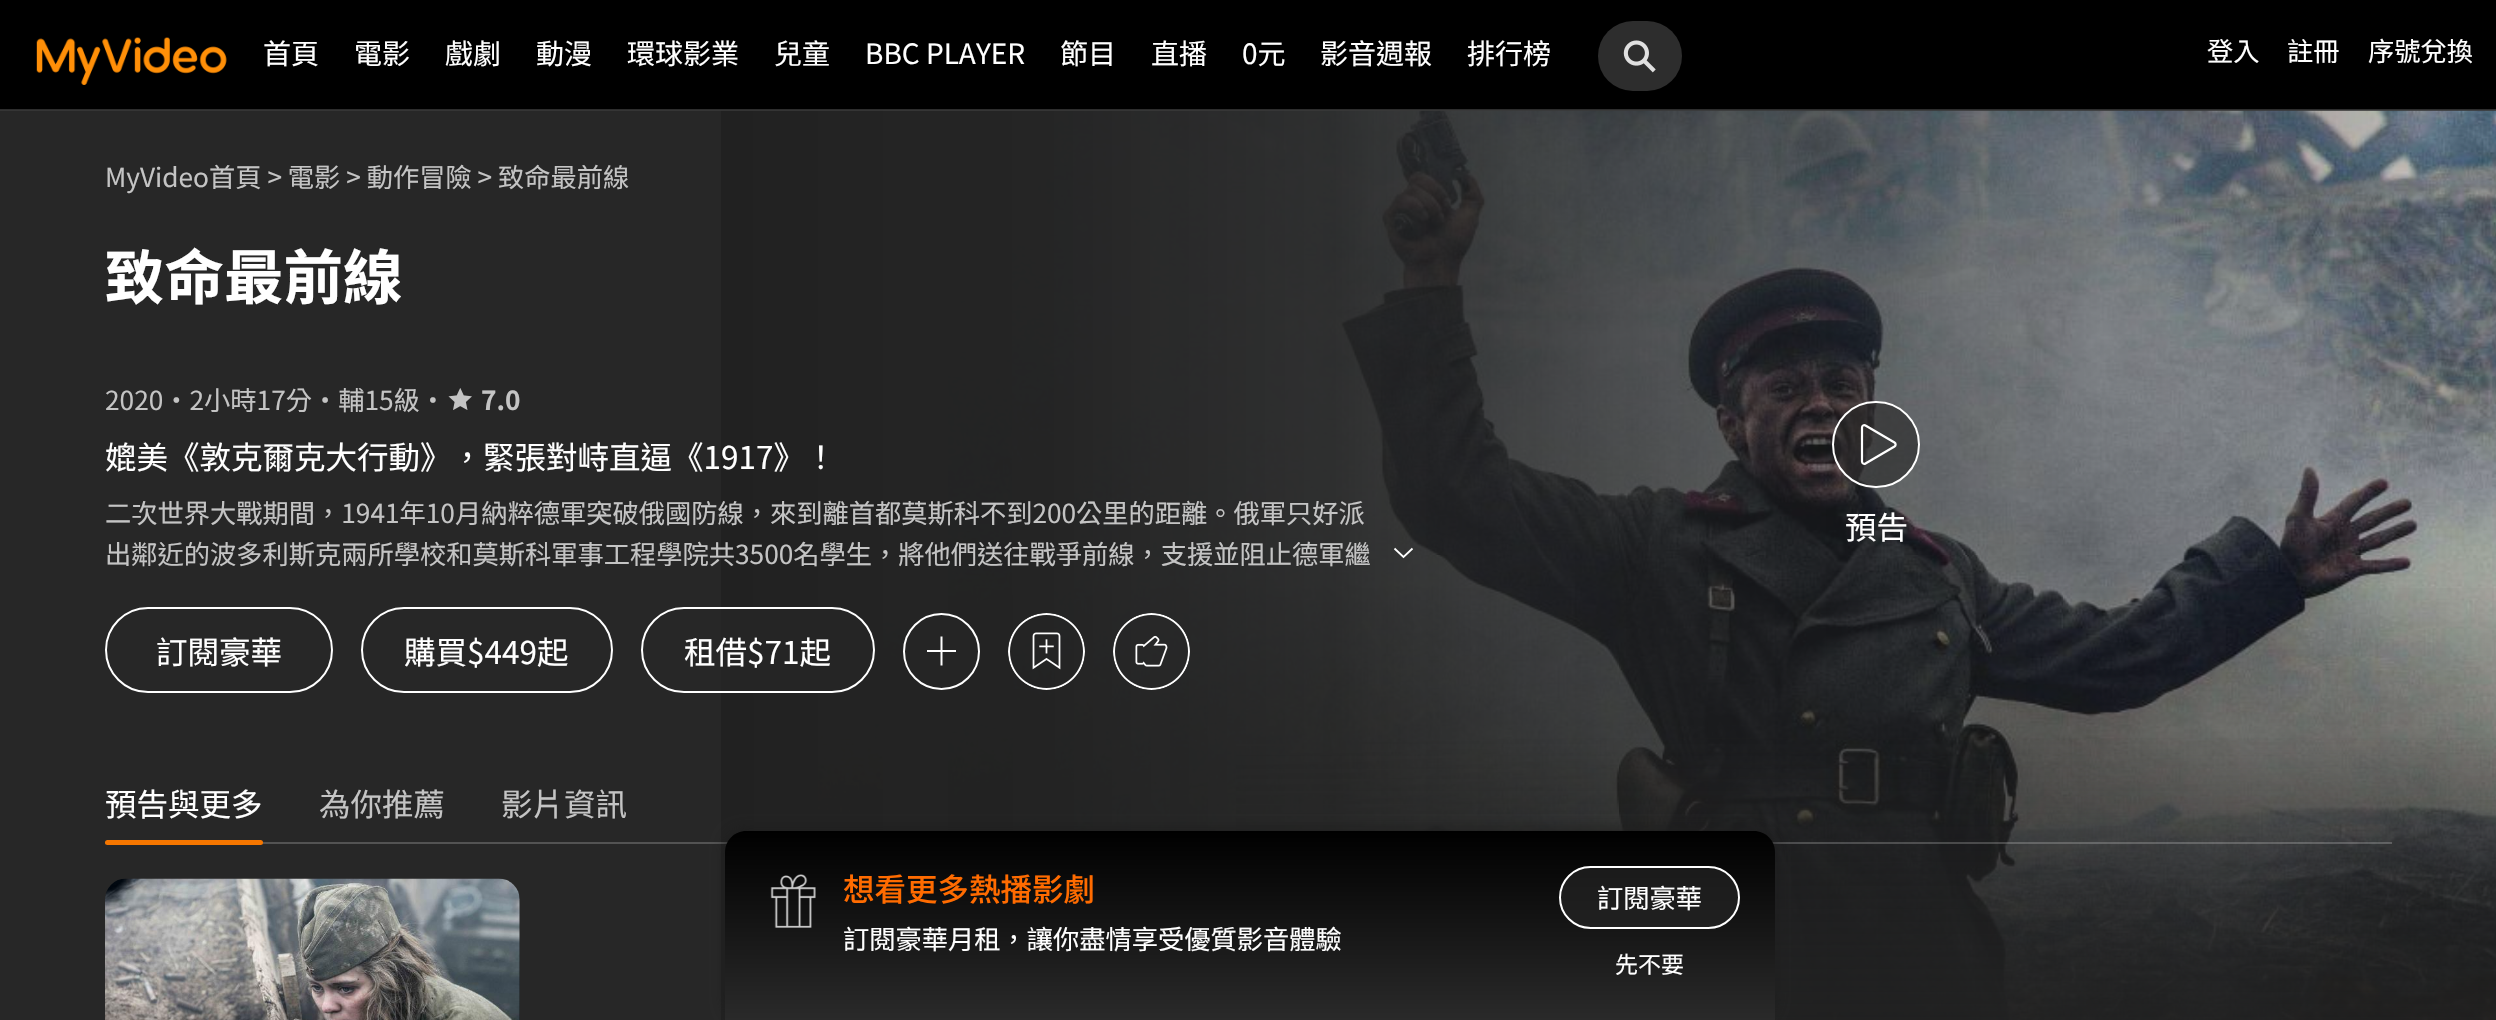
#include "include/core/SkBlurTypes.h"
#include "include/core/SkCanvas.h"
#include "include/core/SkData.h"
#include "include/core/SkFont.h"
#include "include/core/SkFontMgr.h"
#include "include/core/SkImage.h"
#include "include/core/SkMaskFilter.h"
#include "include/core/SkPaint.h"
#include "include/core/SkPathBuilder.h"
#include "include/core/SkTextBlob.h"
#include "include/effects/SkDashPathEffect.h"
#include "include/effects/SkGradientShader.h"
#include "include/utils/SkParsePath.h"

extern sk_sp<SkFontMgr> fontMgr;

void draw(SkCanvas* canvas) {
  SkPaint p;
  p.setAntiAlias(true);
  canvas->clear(SkColorSetRGB(39, 39, 39));
  p.setColor(SK_ColorBLACK);
  canvas->drawRect(SkRect::MakeLTRB(0, 0, 2496, 110), p);
  canvas->drawImageRect(SkImages::DeferredFromEncodedData(SkData::MakeFromFileName("images/3.png")), SkRect::MakeLTRB(816, 110, 2496, 1020), SkSamplingOptions());
  {
    const SkColor colors[] = {SkColorSetARGB(179, 33, 33, 33), SkColorSetARGB(0, 33, 33, 33)};
    const float stops[] = {0.06f, 0.43f};
    const SkPoint ends[] = {{1621, 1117}, {1620, -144}};
    p.setShader(SkGradientShader::MakeLinear(ends, colors, stops, 2, SkTileMode::kClamp));
    p.setAlpha(255);
  }
  canvas->drawRect(SkRect::MakeLTRB(816, 588, 2496, 1020), p);
  {
    const SkColor colors[] = {SkColorSetRGB(33, 33, 33), SkColorSetARGB(250, 33, 33, 33), SkColorSetARGB(235, 33, 33, 33), SkColorSetARGB(51, 33, 33, 33)};
    const float stops[] = {0, 0.18f, 0.34f, 1};
    const SkPoint ends[] = {{721, 487}, {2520, 486}};
    p.setShader(SkGradientShader::MakeLinear(ends, colors, stops, 4, SkTileMode::kClamp));
    p.setAlpha(255);
  }
  canvas->drawRect(SkRect::MakeLTRB(721, 110, 2496, 1020), p);
  p.setShader(nullptr);
  p.setColor(SkColorSetARGB(204, 56, 56, 56));
  canvas->drawRect(SkRect::MakeLTRB(0, 109, 2496, 111), p);
  canvas->drawImageRect(SkImages::DeferredFromEncodedData(SkData::MakeFromFileName("images/1.png")), SkRect::MakeLTRB(36, 37, 227, 85), SkSamplingOptions());
  p.setColor(SkColorSetRGB(45, 45, 45));
  canvas->drawRoundRect(SkRect::MakeLTRB(1598, 21, 1682, 91), 35, 35, p);
  canvas->drawImageRect(SkImages::DeferredFromEncodedData(SkData::MakeFromFileName("images/2.png")), SkRect::MakeLTRB(1623, 40, 1656, 73), SkSamplingOptions());
  {
    const SkColor colors[] = {SkColorSetRGB(33, 33, 33), SkColorSetARGB(0, 33, 33, 33)};
    const float stops[] = {0, 0.31f};
    const SkPoint ends[] = {{1621, 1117}, {1621, -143}};
    p.setShader(SkGradientShader::MakeLinear(ends, colors, stops, 2, SkTileMode::kClamp));
    p.setAlpha(255);
  }
  canvas->drawRect(SkRect::MakeLTRB(1236, 738, 2496, 1020), p);
  canvas->drawImageRect(SkImages::DeferredFromEncodedData(SkData::MakeFromFileName("images/4.png")), SkRect::MakeLTRB(448, 388, 472, 410), SkSamplingOptions());
  p.setStyle(SkPaint::kStroke_Style);
  p.setStrokeWidth(1.8f);
  p.setShader(nullptr);
  p.setColor(SK_ColorWHITE);
  canvas->drawPath(SkPathBuilder().moveTo(1412.5f, 548.5f).lineTo(1403.5f, 557).lineTo(1394.5f, 548.5f).detach(), p);
  p.setStrokeWidth(2);
  canvas->drawRoundRect(SkRect::MakeLTRB(106, 608, 332, 692), 42, 42, p);
  canvas->drawRoundRect(SkRect::MakeLTRB(362, 608, 612, 692), 42, 42, p);
  p.setStyle(SkPaint::kFill_Style);
  p.setColor(SkColorSetARGB(153, 38, 38, 38));
  canvas->drawRoundRect(SkRect::MakeLTRB(642, 608, 874, 692), 42, 42, p);
  p.setStyle(SkPaint::kStroke_Style);
  p.setColor(SK_ColorWHITE);
  canvas->drawRoundRect(SkRect::MakeLTRB(642, 608, 874, 692), 42, 42, p);
  p.setStyle(SkPaint::kFill_Style);
  p.setColor(SkColorSetRGB(37, 37, 37));
  canvas->drawCircle(941.5f, 651.5f, 38.5f, p);
  p.setColor(SK_ColorWHITE);
  canvas->drawPath(SkPathBuilder(SkPathFillType::kEvenOdd).moveTo(927.5f, 650).lineTo(927, 650).lineTo(927, 652).lineTo(940.5f, 652).lineTo(940.5f, 665.5f).lineTo(942.5f, 665.5f).lineTo(942.5f, 652).lineTo(956, 652).lineTo(956, 650).lineTo(942.5f, 650).lineTo(942.5f, 636.5f).lineTo(940.5f, 636.5f).lineTo(940.5f, 650).close().detach(), p);
  p.setStyle(SkPaint::kStroke_Style);
  canvas->drawCircle(941.5f, 651.5f, 37.5f, p);
  canvas->drawImageRect(SkImages::DeferredFromEncodedData(SkData::MakeFromFileName("images/5.png")), SkRect::MakeLTRB(1008, 613, 1085, 690), SkSamplingOptions());
  canvas->drawImageRect(SkImages::DeferredFromEncodedData(SkData::MakeFromFileName("images/6.png")), SkRect::MakeLTRB(1113, 613, 1190, 690), SkSamplingOptions());
  p.setStyle(SkPaint::kFill_Style);
  p.setColor(SkColorSetARGB(153, 38, 38, 38));
  canvas->drawRoundRect(SkRect::MakeLTRB(1832, 401, 1920, 488), 43.5f, 43.5f, p);
  p.setStyle(SkPaint::kStroke_Style);
  p.setStrokeWidth(2.2f);
  p.setColor(SK_ColorWHITE);
  canvas->drawPath(SkPathBuilder().moveTo(1865.5f, 463.5f).cubicTo(1864, 464.5f, 1862, 463.5f, 1862, 461.5f).lineTo(1862, 427.5f).cubicTo(1862, 425.5f, 1864, 424.5f, 1865.5f, 425.5f).lineTo(1894.5f, 442.5f).cubicTo(1896, 443.5f, 1896, 445.5f, 1894.5f, 446.5f).close().detach(), p);
  p.setStrokeWidth(2);
  canvas->drawRoundRect(SkRect::MakeLTRB(1833, 402, 1919, 487), 42.5f, 42.5f, p);
  p.setStyle(SkPaint::kFill_Style);
  p.setColor(SkColorSetARGB(51, 255, 255, 255));
  canvas->drawRect(SkRect::MakeLTRB(105, 842, 2392, 844), p);
  p.setColor(SkColorSetRGB(245, 118, 0));
  canvas->drawRoundRect(SkRect::MakeLTRB(105, 840, 263, 845), 2.5f, 2.5f, p);
  p.setColor(SkColorSetRGB(18, 18, 18));
  canvas->drawRoundRect(SkRect::MakeLTRB(105, 879, 520, 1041), 21, 21, p);
  canvas->drawImageRect(SkImages::DeferredFromEncodedData(SkData::MakeFromFileName("images/7.png")), SkRect::MakeLTRB(105, 878, 520, 1020), SkSamplingOptions());
  {
    const SkColor colors[] = {SkColorSetARGB(204, 0, 0, 0), SkColorSetARGB(74, 0, 0, 0), SkColorSetARGB(0, 0, 0, 0)};
    const float stops[] = {0, 0.28f, 0.47f};
    const SkPoint ends[] = {{311, 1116}, {314, 876}};
    p.setShader(SkGradientShader::MakeLinear(ends, colors, stops, 3, SkTileMode::kClamp));
    p.setAlpha(255);
  }
  canvas->drawRect(SkRect::MakeLTRB(105, 1004, 520, 1020), p);
  p.setShader(nullptr);
  p.setColor(SkColorSetARGB(204, 27, 27, 27));
  p.setMaskFilter(SkMaskFilter::MakeBlur(kNormal_SkBlurStyle, 7));
  canvas->drawRoundRect(SkRect::MakeLTRB(725, 830, 1775, 1019), 21, 21, p);
  p.setMaskFilter(nullptr);
  {
    const SkColor colors[] = {SK_ColorBLACK, SkColorSetRGB(42, 42, 42)};
    const float stops[] = {0, 1};
    const SkPoint ends[] = {{1250, 831}, {1250, 1020}};
    p.setShader(SkGradientShader::MakeLinear(ends, colors, stops, 2, SkTileMode::kClamp));
    p.setAlpha(255);
  }
  canvas->drawPath(SkPathBuilder().moveTo(746, 831).lineTo(1754, 831).cubicTo(1765.5f, 831, 1775, 840.5f, 1775, 852).lineTo(1775, 1020).lineTo(725, 1020).lineTo(725, 852).cubicTo(725, 840.5f, 734.5f, 831, 746, 831).close().detach(), p);
  canvas->drawImageRect(SkImages::DeferredFromEncodedData(SkData::MakeFromFileName("images/8.png")), SkRect::MakeLTRB(770, 874, 816, 928), SkSamplingOptions());
  p.setShader(nullptr);
  p.setColor(SkColorSetARGB(153, 38, 38, 38));
  canvas->drawRoundRect(SkRect::MakeLTRB(1560, 867, 1739, 928), 30.5f, 30.5f, p);
  p.setStyle(SkPaint::kStroke_Style);
  p.setColor(SK_ColorWHITE);
  canvas->drawRoundRect(SkRect::MakeLTRB(1560, 867, 1739, 928), 30.5f, 30.5f, p);
  SkFont font1(fontMgr->matchFamilyStyle("Noto Sans TC", SkFontStyle::Normal()), 28);
  font1.setSubpixel(true);
  p.setStyle(SkPaint::kFill_Style);
  canvas->drawString("首頁", 263, 64, font1, p);
  canvas->drawString("電影", 354, 64, font1, p);
  canvas->drawString("戲劇", 445, 64, font1, p);
  canvas->drawString("動漫", 536, 64, font1, p);
  canvas->drawString("環球影業", 627, 64, font1, p);
  canvas->drawString("兒童", 774, 64, font1, p);
  canvas->drawString("BBC PLAYER", 865, 64, font1, p);
  canvas->drawString("節目", 1060, 64, font1, p);
  canvas->drawString("直播", 1151, 64, font1, p);
  canvas->drawString("0元", 1242, 64, font1, p);
  canvas->drawString("影音週報", 1320, 64, font1, p);
  canvas->drawString("排行榜", 1467, 64, font1, p);
  SkFont font2(fontMgr->matchFamilyStyle("Noto Sans TC", SkFontStyle::Normal()), 26.25f);
  font2.setSubpixel(true);
  canvas->drawString("登入", 2207, 61, font2, p);
  canvas->drawString("註冊", 2287, 61, font2, p);
  canvas->drawString("序號兌換", 2368, 61, font2, p);
  p.setColor(SkColorSetRGB(196, 196, 196));
  canvas->drawString("MyVideo首頁 > 電影 > 動作冒險 > 致命最前線", 105, 187, font2, p);
  SkFont font3(fontMgr->matchFamilyStyle("Noto Sans TC", SkFontStyle::Bold()), 59.5f);
  font3.setSubpixel(true);
  p.setColor(SK_ColorWHITE);
  canvas->drawString("致命最前線", 105, 299, font3, p);
  p.setColor(SkColorSetRGB(196, 196, 196));
  canvas->drawString("2020・2小時17分・輔15級・", 105, 410, font2, p);
  SkFont font4(fontMgr->matchFamilyStyle("Noto Sans TC", SkFontStyle::Bold()), 26.25f);
  font4.setSubpixel(true);
  canvas->drawString("7.0", 481, 410, font4, p);
  SkFont font5(fontMgr->matchFamilyStyle("Noto Sans TC", SkFontStyle::Normal()), 31.5f);
  font5.setSubpixel(true);
  p.setColor(SK_ColorWHITE);
  canvas->drawString("媲美《敦克爾克大行動》，緊張對峙直逼《1917》！", 105, 469, font5, p);
  p.setColor(SkColorSetRGB(196, 196, 196));
  canvas->drawString("二次世界大戰期間，1941年10月納粹德軍突破俄國防線，來到離首都莫斯科不到200公里的距離。俄軍只好派", 105, 523, font2, p);
  canvas->drawString("出鄰近的波多利斯克兩所學校和莫斯科軍事工程學院共3500名學生，將他們送往戰爭前線，支援並阻止德軍繼", 105, 564, font2, p);
  p.setColor(SK_ColorWHITE);
  canvas->drawString("訂閱豪華", 156, 664, font5, p);
  canvas->drawString("購買$449起", 404, 664, font5, p);
  canvas->drawString("租借$71起", 684, 664, font5, p);
  canvas->drawString("預告", 1845, 539, font5, p);
  canvas->drawString("預告與更多", 105, 816, font5, p);
  p.setColor(SkColorSetRGB(196, 196, 196));
  canvas->drawString("為你推薦", 319, 816, font5, p);
  canvas->drawString("影片資訊", 501, 816, font5, p);
  SkFont font6(fontMgr->matchFamilyStyle("Noto Sans TC", SkFontStyle(500, SkFontStyle::kNormal_Width, SkFontStyle::kUpright_Slant)), 31.5f);
  font6.setSubpixel(true);
  p.setColor(SkColorSetRGB(255, 107, 0));
  canvas->drawString("想看更多熱播影劇", 843, 901, font6, p);
  p.setColor(SK_ColorWHITE);
  canvas->drawString("訂閱豪華月租，讓你盡情享受優質影音體驗", 843, 949, font2, p);
  canvas->drawString("訂閱豪華", 1597, 908, font2, p);
  SkFont font7(fontMgr->matchFamilyStyle("Noto Sans TC", SkFontStyle::Normal()), 23);
  font7.setSubpixel(true);
  canvas->drawString("先不要", 1615, 973, font7, p);
}
